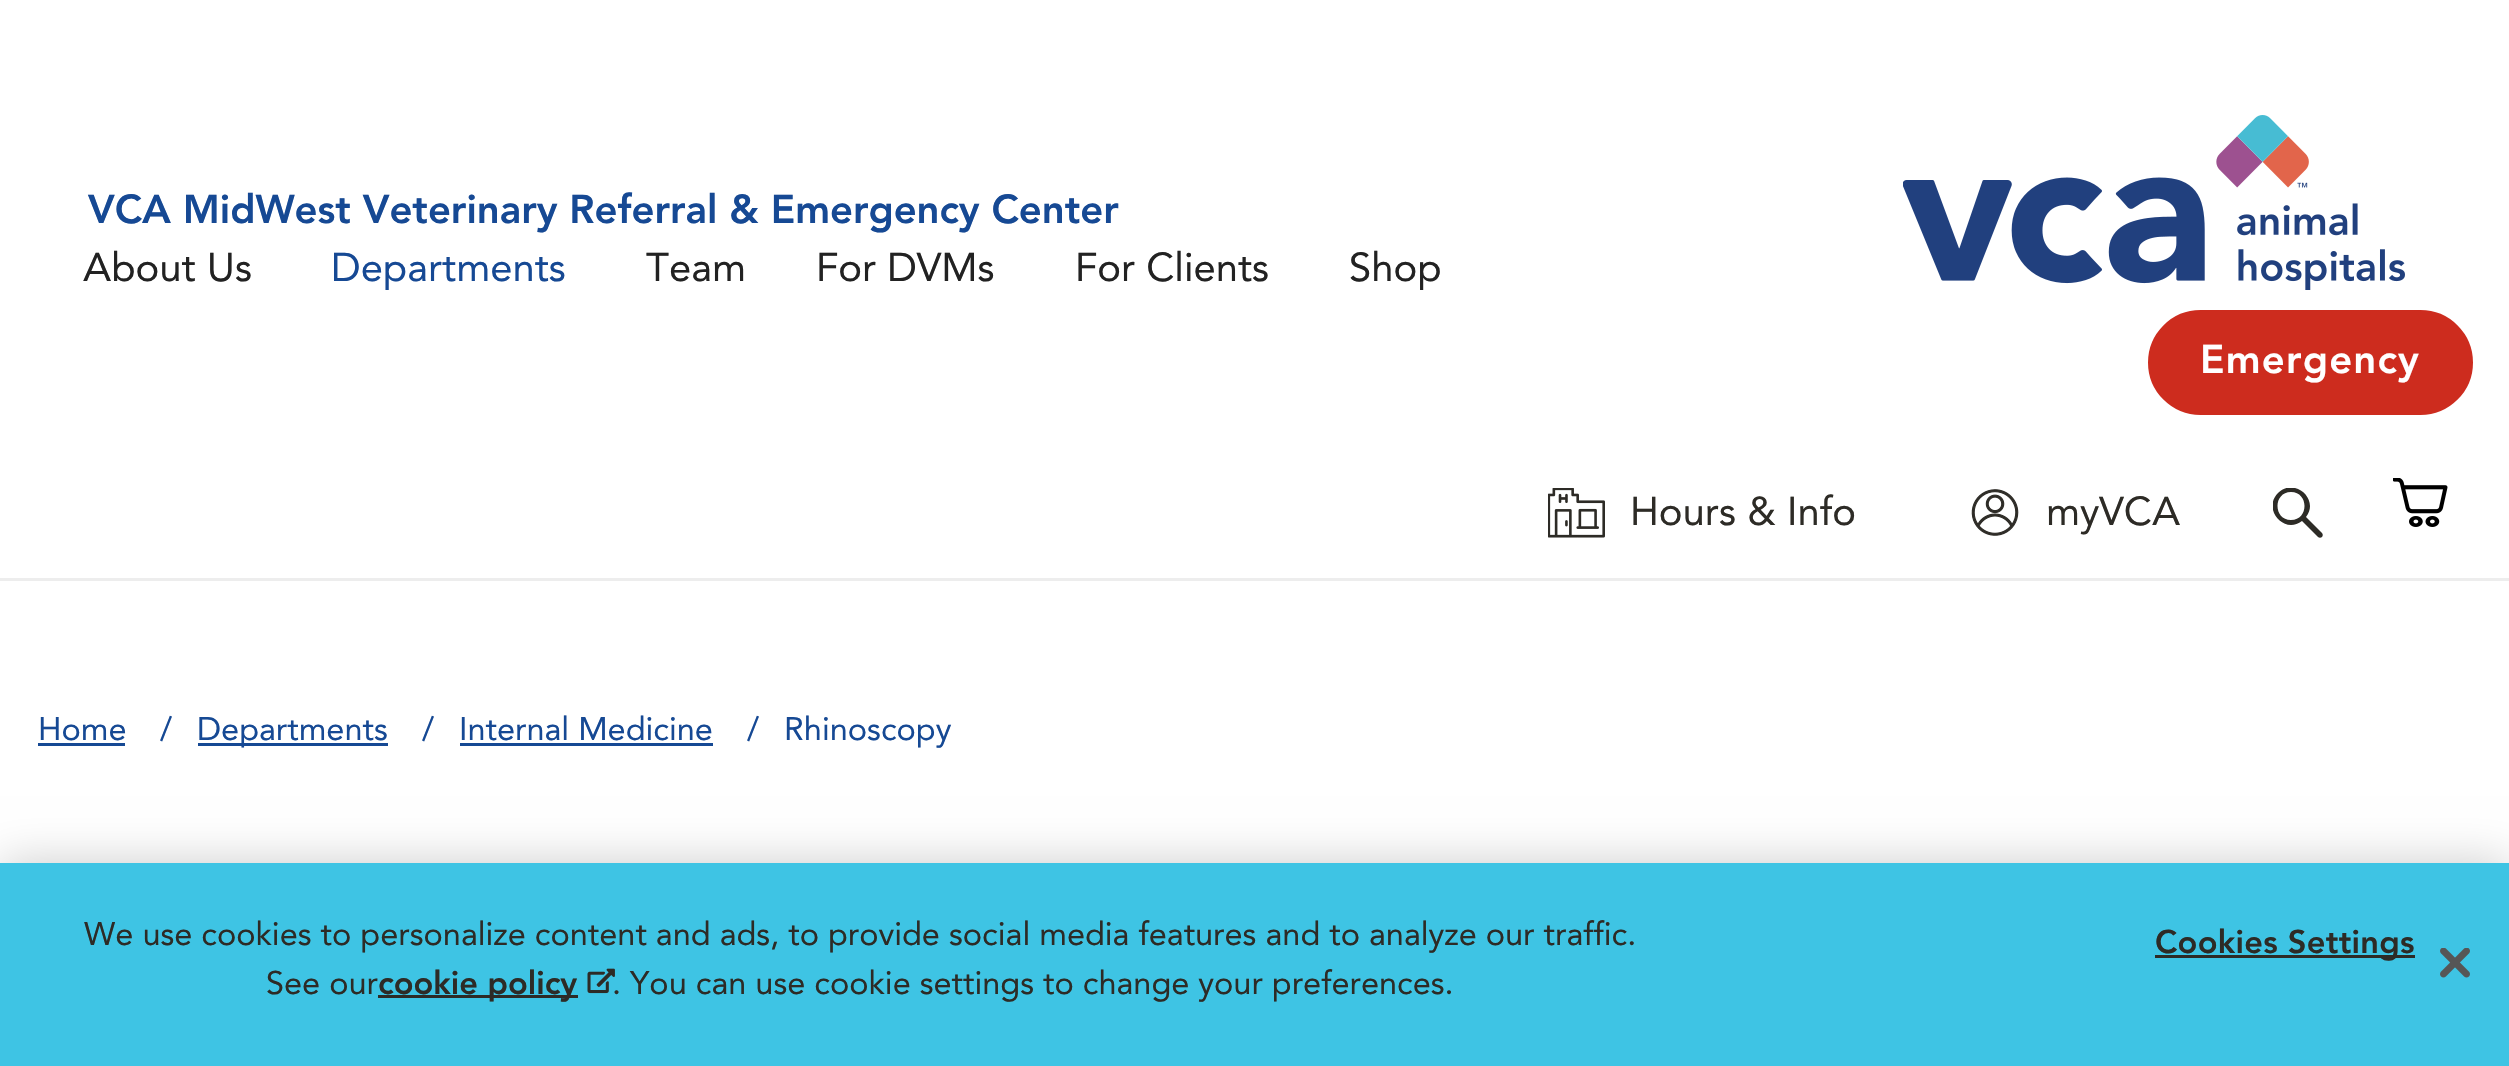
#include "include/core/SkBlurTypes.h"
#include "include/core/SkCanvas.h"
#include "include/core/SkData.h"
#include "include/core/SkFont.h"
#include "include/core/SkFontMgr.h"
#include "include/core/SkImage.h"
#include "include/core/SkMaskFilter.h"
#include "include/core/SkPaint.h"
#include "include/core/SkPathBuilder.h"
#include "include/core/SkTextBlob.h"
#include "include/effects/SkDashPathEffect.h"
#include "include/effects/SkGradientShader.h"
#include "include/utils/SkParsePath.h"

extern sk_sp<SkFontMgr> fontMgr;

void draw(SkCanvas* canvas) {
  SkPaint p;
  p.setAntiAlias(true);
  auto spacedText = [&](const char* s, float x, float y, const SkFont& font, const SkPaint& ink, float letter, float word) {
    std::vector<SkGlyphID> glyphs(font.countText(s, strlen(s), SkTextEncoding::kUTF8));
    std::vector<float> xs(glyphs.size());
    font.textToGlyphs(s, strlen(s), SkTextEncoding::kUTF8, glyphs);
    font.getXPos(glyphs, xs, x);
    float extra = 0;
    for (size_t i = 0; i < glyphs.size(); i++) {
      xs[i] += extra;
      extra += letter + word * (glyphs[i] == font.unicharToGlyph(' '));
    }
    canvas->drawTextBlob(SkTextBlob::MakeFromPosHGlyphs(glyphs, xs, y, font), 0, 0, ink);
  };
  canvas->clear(SK_ColorWHITE);
  p.setColor(SkColorSetRGB(237, 237, 237));
  canvas->drawRect(SkRect::MakeLTRB(0, 578, 2509, 581), p);
  canvas->drawImageRect(SkImages::DeferredFromEncodedData(SkData::MakeFromFileName("images/1.png")), SkRect::MakeLTRB(1903, 115, 2405, 290), SkSamplingOptions());
  p.setColor(SkColorSetRGB(205, 44, 30));
  canvas->drawRoundRect(SkRect::MakeLTRB(2149.5f, 311.5f, 2471.5f, 413.5f), 51, 51, p);
  p.setStyle(SkPaint::kStroke_Style);
  p.setStrokeWidth(3);
  canvas->drawRoundRect(SkRect::MakeLTRB(2149.5f, 311.5f, 2471.5f, 413.5f), 51, 51, p);
  canvas->drawImageRect(SkImages::DeferredFromEncodedData(SkData::MakeFromFileName("images/2.png")), SkRect::MakeLTRB(1548, 488, 1605, 538), SkSamplingOptions());
  canvas->drawImageRect(SkImages::DeferredFromEncodedData(SkData::MakeFromFileName("images/3.png")), SkRect::MakeLTRB(1971, 489, 2019, 536), SkSamplingOptions());
  canvas->save();
  canvas->clipRect(SkRect::MakeLTRB(2273, 488, 2323, 538));
  p.setStyle(SkPaint::kFill_Style);
  p.setColor(SkColorSetRGB(45, 43, 38));
  canvas->drawPath(SkPathBuilder(SkPathFillType::kEvenOdd).moveTo(2306, 517).cubicTo(2320, 499, 2294, 477, 2278, 493).cubicTo(2262, 509, 2284, 535, 2302, 521).lineTo(2318, 537).cubicTo(2319, 538, 2321, 538, 2322, 537).cubicTo(2323, 536, 2323, 534, 2322, 533).close().moveTo(2291, 520).cubicTo(2273, 520, 2273, 492, 2291, 492).cubicTo(2309, 492, 2309, 520, 2291, 520).close().detach(), p);
  canvas->restore();
  canvas->drawImageRect(SkImages::DeferredFromEncodedData(SkData::MakeFromFileName("images/4.png")), SkRect::MakeLTRB(2393, 478, 2448, 527), SkSamplingOptions());
  p.setColor(SkColorSetRGB(22, 73, 148));
  canvas->drawRect(SkRect::MakeLTRB(38, 743, 125, 746), p);
  canvas->drawRect(SkRect::MakeLTRB(198, 743, 388, 746), p);
  canvas->drawRect(SkRect::MakeLTRB(460, 743, 713, 746), p);
  p.setColor(SkColorSetARGB(51, 0, 0, 0));
  p.setMaskFilter(SkMaskFilter::MakeBlur(kNormal_SkBlurStyle, 22.5f));
  canvas->drawRect(SkRect::MakeLTRB(0, 863, 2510, 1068), p);
  p.setMaskFilter(nullptr);
  p.setColor(SkColorSetRGB(62, 196, 228));
  canvas->drawRect(SkRect::MakeLTRB(0, 863, 2509, 1066), p);
  p.setColor(SkColorSetRGB(45, 43, 38));
  canvas->drawRect(SkRect::MakeLTRB(378, 995, 578, 998), p);
  canvas->drawImageRect(SkImages::DeferredFromEncodedData(SkData::MakeFromFileName("images/5.png")), SkRect::MakeLTRB(587, 968, 615, 994), SkSamplingOptions());
  canvas->drawRect(SkRect::MakeLTRB(2155, 955, 2415, 958), p);
  canvas->drawImageRect(SkImages::DeferredFromEncodedData(SkData::MakeFromFileName("images/6.png")), SkRect::MakeLTRB(2440, 948, 2470, 978), SkSamplingOptions());
  SkFont font1(fontMgr->matchFamilyStyle("Avenir", SkFontStyle(900, SkFontStyle::kNormal_Width, SkFontStyle::kUpright_Slant)), 40);
  font1.setSubpixel(true);
  p.setColor(SkColorSetRGB(22, 73, 148));
  canvas->drawString("VCA MidWest Veterinary Referral & Emergency Center", 88, 223, font1, p);
  SkFont font2(fontMgr->matchFamilyStyle("Avenir", SkFontStyle::Normal()), 40);
  font2.setSubpixel(true);
  p.setColor(SkColorSetRGB(34, 34, 34));
  canvas->drawString("About Us", 83, 281, font2, p);
  p.setColor(SkColorSetRGB(22, 73, 148));
  canvas->drawString("Departments", 331, 281, font2, p);
  p.setColor(SkColorSetRGB(34, 34, 34));
  canvas->drawString("Team", 646, 281, font2, p);
  canvas->drawString("For DVMs", 816, 281, font2, p);
  canvas->drawString("For Clients", 1075, 281, font2, p);
  canvas->drawString("Shop", 1349, 281, font2, p);
  p.setColor(SK_ColorWHITE);
  spacedText("Emergency", 2200, 373, font1, p, 1.25f, 0);
  p.setColor(SkColorSetRGB(45, 43, 38));
  canvas->drawString("Hours & Info", 1630, 525, font2, p);
  canvas->drawString("myVCA", 2046, 525, font2, p);
  SkFont font3(fontMgr->matchFamilyStyle("Avenir", SkFontStyle::Normal()), 32.5f);
  font3.setSubpixel(true);
  p.setColor(SkColorSetRGB(22, 73, 148));
  canvas->drawString("Home", 38, 740, font3, p);
  canvas->drawString("/", 160, 740, font3, p);
  canvas->drawString("Departments", 197, 740, font3, p);
  canvas->drawString("/", 422, 740, font3, p);
  canvas->drawString("Internal Medicine", 459, 740, font3, p);
  canvas->drawString("/", 747, 740, font3, p);
  canvas->drawString("Rhinoscopy", 784, 740, font3, p);
  p.setColor(SkColorSetRGB(45, 43, 38));
  canvas->drawString("We use cookies to personalize content and ads, to provide social media features and to analyze our traffic.", 84, 945, font3, p);
  canvas->drawString("See our", 266, 994, font3, p);
  SkFont font4(fontMgr->matchFamilyStyle("Avenir", SkFontStyle(900, SkFontStyle::kNormal_Width, SkFontStyle::kUpright_Slant)), 32.5f);
  font4.setSubpixel(true);
  canvas->drawString("cookie policy", 378, 994, font4, p);
  canvas->drawString(". You can use cookie settings to change your preferences.", 612, 994, font3, p);
  spacedText("Cookies Settings", 2155, 953, font4, p, 0.3f, 0);
}
